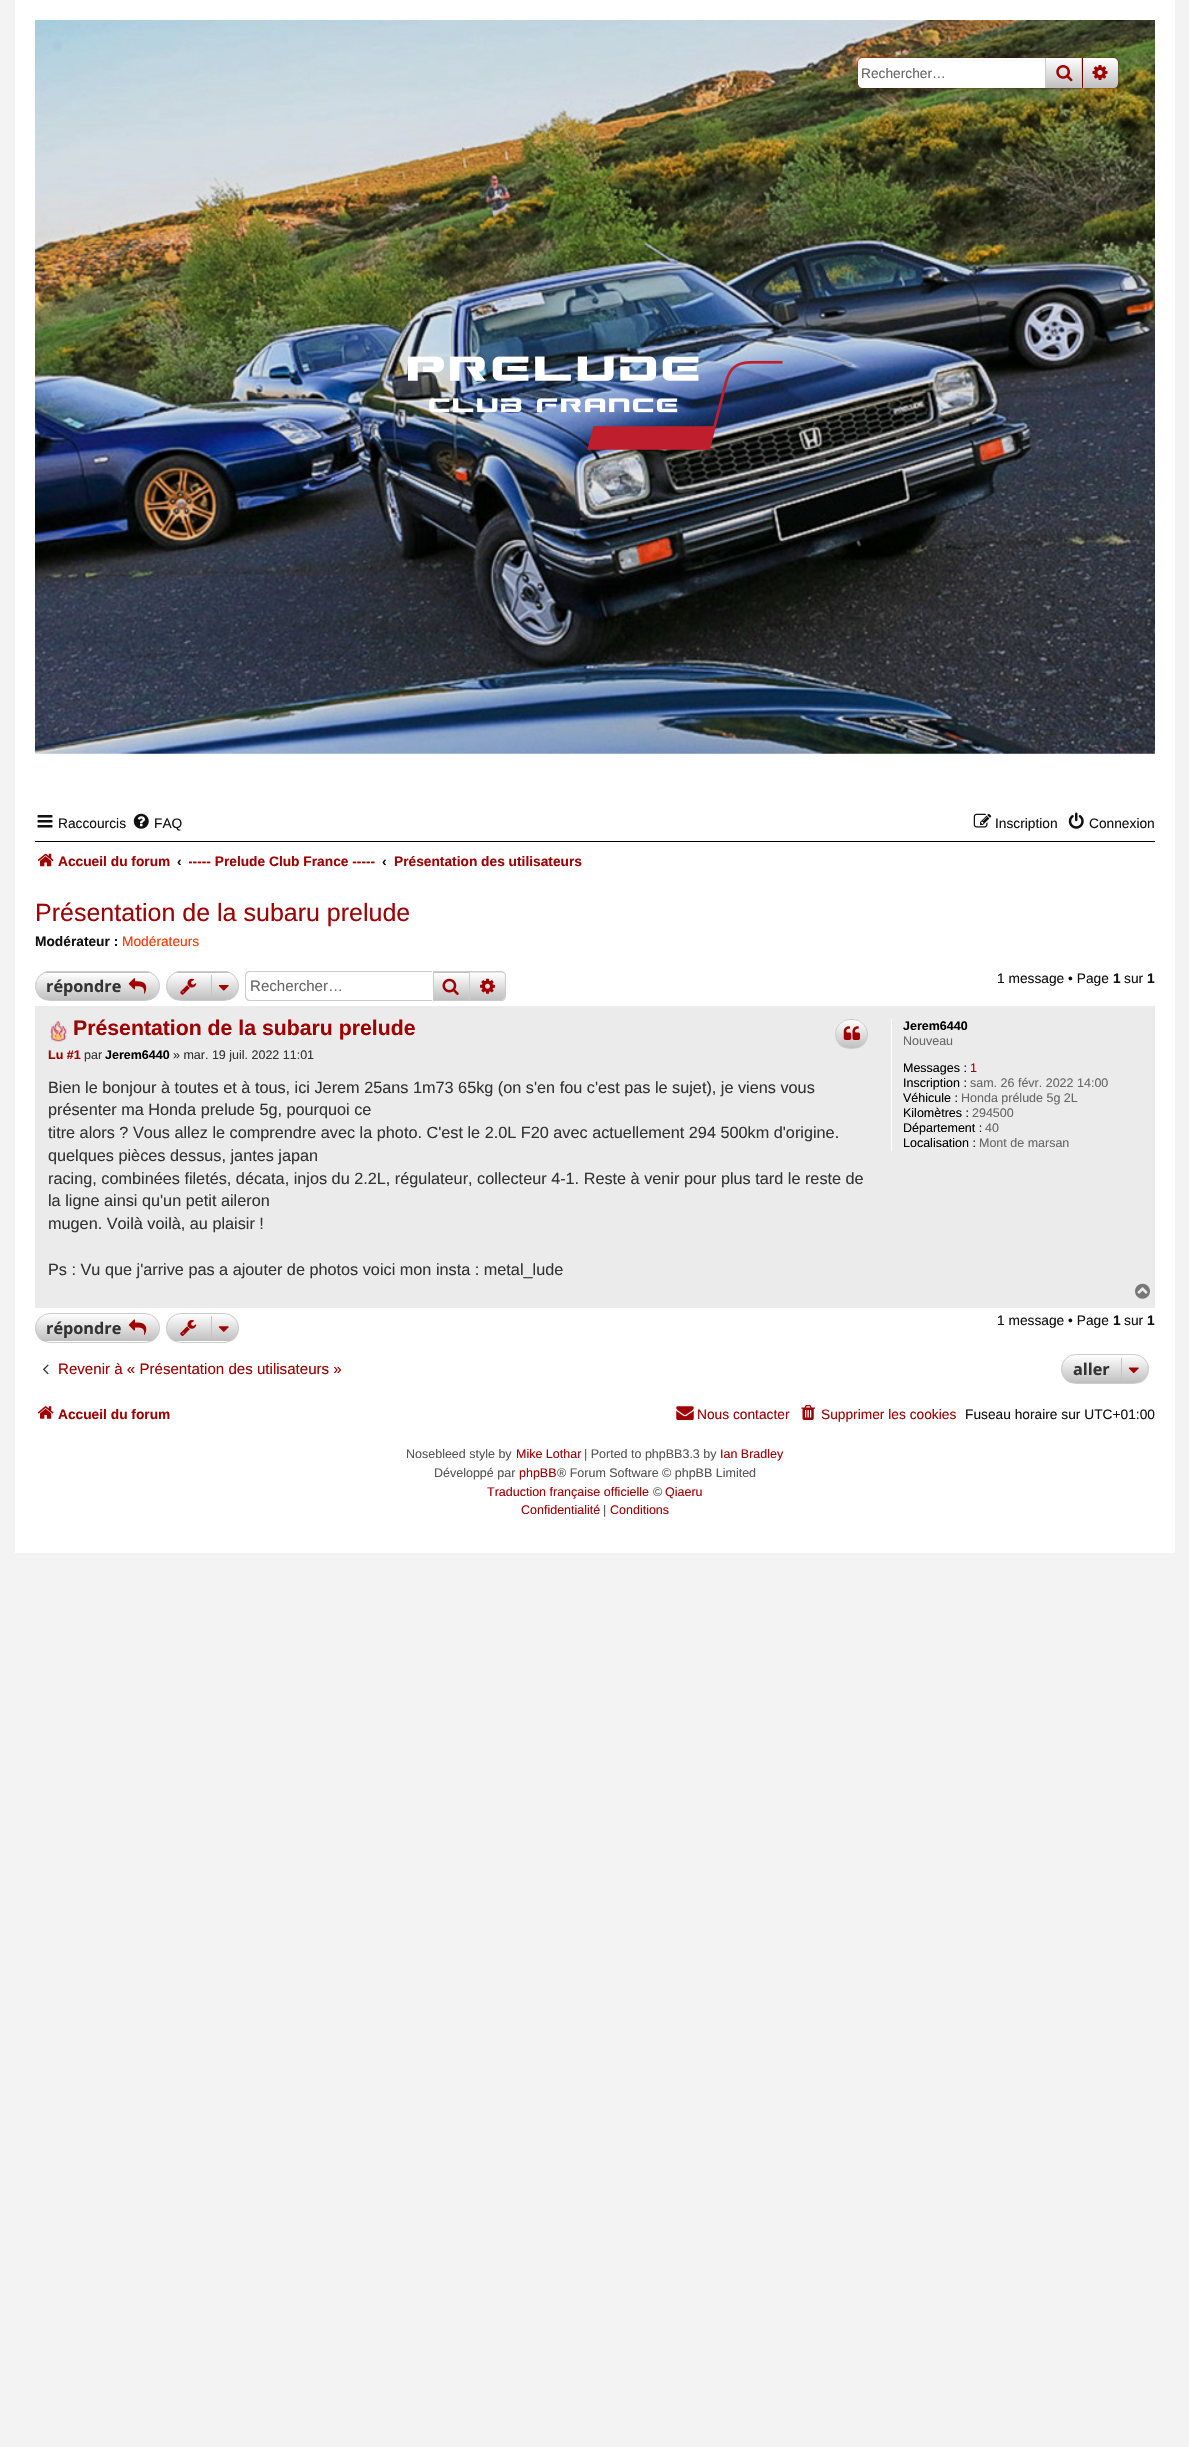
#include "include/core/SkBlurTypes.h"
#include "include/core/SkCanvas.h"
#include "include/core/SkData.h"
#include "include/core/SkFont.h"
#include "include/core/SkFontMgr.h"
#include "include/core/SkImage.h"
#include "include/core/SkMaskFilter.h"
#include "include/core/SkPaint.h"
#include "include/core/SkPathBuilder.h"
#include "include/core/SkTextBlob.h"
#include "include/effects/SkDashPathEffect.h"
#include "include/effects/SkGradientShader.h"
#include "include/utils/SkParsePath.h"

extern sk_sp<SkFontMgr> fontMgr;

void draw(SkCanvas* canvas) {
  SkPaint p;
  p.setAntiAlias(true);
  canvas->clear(SkColorSetRGB(243, 243, 243));
  p.setColor(SK_ColorWHITE);
  canvas->drawRect(SkRect::MakeLTRB(15, 0, 1175, 1553), p);
  canvas->drawImageRect(SkImages::DeferredFromEncodedData(SkData::MakeFromFileName("images/1.png")), SkRect::MakeLTRB(35, 20, 1155, 754), SkSamplingOptions());
  p.setColor(SkColorSetRGB(118, 0, 0));
  p.setMaskFilter(SkMaskFilter::MakeBlur(kNormal_SkBlurStyle, 1));
  canvas->drawRoundRect(SkRect::MakeLTRB(858, 58, 1118, 88), 5, 5, p);
  p.setMaskFilter(nullptr);
  p.setColor(SK_ColorWHITE);
  canvas->drawPath(SkPathBuilder().moveTo(863, 58).lineTo(1045, 58).lineTo(1045, 88).lineTo(863, 88).cubicTo(860, 88, 858, 86, 858, 83).lineTo(858, 63).cubicTo(858, 60, 860, 58, 863, 58).close().detach(), p);
  {
    const SkColor colors[] = {SK_ColorWHITE, SkColorSetRGB(191, 191, 191)};
    const float stops[] = {0, 1};
    const SkPoint ends[] = {{1064, 58}, {1064, 88}};
    p.setShader(SkGradientShader::MakeLinear(ends, colors, stops, 2, SkTileMode::kClamp));
    p.setAlpha(255);
  }
  canvas->drawRect(SkRect::MakeLTRB(1046, 58, 1081, 88), p);
  p.setShader(nullptr);
  p.setColor(SkColorSetRGB(204, 204, 204));
  canvas->drawRect(SkRect::MakeLTRB(1081, 58, 1082, 88), p);
  canvas->drawRect(SkRect::MakeLTRB(1045, 58, 1046, 88), p);
  canvas->drawImageRect(SkImages::DeferredFromEncodedData(SkData::MakeFromFileName("images/2.png")), SkRect::MakeLTRB(1056, 65, 1073, 82), SkSamplingOptions());
  {
    const SkColor colors[] = {SK_ColorWHITE, SkColorSetRGB(191, 191, 191)};
    const float stops[] = {0, 1};
    const SkPoint ends[] = {{1100, 58}, {1100, 88}};
    p.setShader(SkGradientShader::MakeLinear(ends, colors, stops, 2, SkTileMode::kClamp));
    p.setAlpha(255);
  }
  canvas->drawPath(SkPathBuilder().moveTo(1083, 58).lineTo(1113, 58).cubicTo(1116, 58, 1118, 60, 1118, 63).lineTo(1118, 83).cubicTo(1118, 86, 1116, 88, 1113, 88).lineTo(1083, 88).close().detach(), p);
  canvas->drawImageRect(SkImages::DeferredFromEncodedData(SkData::MakeFromFileName("images/3.png")), SkRect::MakeLTRB(1092, 65, 1108, 80), SkSamplingOptions());
  canvas->drawImageRect(SkImages::DeferredFromEncodedData(SkData::MakeFromFileName("images/4.png")), SkRect::MakeLTRB(408, 356, 783, 450), SkSamplingOptions());
  canvas->drawImageRect(SkImages::DeferredFromEncodedData(SkData::MakeFromFileName("images/5.png")), SkRect::MakeLTRB(37, 815, 53, 828), SkSamplingOptions());
  canvas->drawImageRect(SkImages::DeferredFromEncodedData(SkData::MakeFromFileName("images/6.png")), SkRect::MakeLTRB(133, 813, 149, 829), SkSamplingOptions());
  canvas->drawImageRect(SkImages::DeferredFromEncodedData(SkData::MakeFromFileName("images/7.png")), SkRect::MakeLTRB(973, 813, 992, 828), SkSamplingOptions());
  canvas->drawImageRect(SkImages::DeferredFromEncodedData(SkData::MakeFromFileName("images/8.png")), SkRect::MakeLTRB(1068, 812, 1084, 829), SkSamplingOptions());
  p.setShader(nullptr);
  p.setColor(SK_ColorBLACK);
  canvas->drawRect(SkRect::MakeLTRB(35, 841, 1155, 842), p);
  canvas->drawImageRect(SkImages::DeferredFromEncodedData(SkData::MakeFromFileName("images/9.png")), SkRect::MakeLTRB(37, 853, 54, 867), SkSamplingOptions());
  canvas->save();
  canvas->clipPath(SkPathBuilder().moveTo(50, 971).lineTo(145, 971).cubicTo(153.5f, 971, 160, 977.5f, 160, 986).cubicTo(160, 994.5f, 153.5f, 1001, 145, 1001).lineTo(50, 1001).cubicTo(41.5f, 1001, 35, 994.5f, 35, 986).cubicTo(35, 977.5f, 41.5f, 971, 50, 971).close().detach(), true);
  {
    const SkColor colors[] = {SK_ColorWHITE, SkColorSetRGB(191, 191, 191)};
    const float stops[] = {0, 1};
    const SkPoint ends[] = {{98, 945}, {98, 973}};
    p.setShader(SkGradientShader::MakeLinear(ends, colors, stops, 2, SkTileMode::kClamp));
    p.setAlpha(255);
  }
  canvas->drawRect(SkRect::MakeLTRB(35, 971, 160, 973), p);
  {
    const SkColor colors[] = {SK_ColorWHITE, SkColorSetRGB(191, 191, 191)};
    const float stops[] = {0, 1};
    const SkPoint ends[] = {{98, 973}, {98, 1000}};
    p.setShader(SkGradientShader::MakeLinear(ends, colors, stops, 2, SkTileMode::kClamp));
    p.setAlpha(255);
  }
  canvas->drawRect(SkRect::MakeLTRB(35, 973, 160, 1000), p);
  canvas->restore();
  p.setStyle(SkPaint::kStroke_Style);
  p.setStrokeWidth(1);
  p.setShader(nullptr);
  p.setColor(SkColorSetRGB(204, 204, 204));
  canvas->drawRoundRect(SkRect::MakeLTRB(35.5f, 971.5f, 159.5f, 1000.5f), 14.5f, 14.5f, p);
  canvas->drawImageRect(SkImages::DeferredFromEncodedData(SkData::MakeFromFileName("images/10.png")), SkRect::MakeLTRB(128, 978, 147, 994), SkSamplingOptions());
  canvas->save();
  canvas->clipPath(SkPathBuilder().moveTo(181, 971).lineTo(224, 971).cubicTo(232.5f, 971, 239, 977.5f, 239, 986).cubicTo(239, 994.5f, 232.5f, 1001, 224, 1001).lineTo(181, 1001).cubicTo(172.5f, 1001, 166, 994.5f, 166, 986).cubicTo(166, 977.5f, 172.5f, 971, 181, 971).close().detach(), true);
  p.setStyle(SkPaint::kFill_Style);
  {
    const SkColor colors[] = {SK_ColorWHITE, SkColorSetRGB(191, 191, 191)};
    const float stops[] = {0, 1};
    const SkPoint ends[] = {{203, 945}, {203, 973}};
    p.setShader(SkGradientShader::MakeLinear(ends, colors, stops, 2, SkTileMode::kClamp));
    p.setAlpha(255);
  }
  canvas->drawRect(SkRect::MakeLTRB(166, 971, 239, 973), p);
  {
    const SkColor colors[] = {SK_ColorWHITE, SkColorSetRGB(191, 191, 191)};
    const float stops[] = {0, 1};
    const SkPoint ends[] = {{203, 973}, {203, 1000}};
    p.setShader(SkGradientShader::MakeLinear(ends, colors, stops, 2, SkTileMode::kClamp));
    p.setAlpha(255);
  }
  canvas->drawRect(SkRect::MakeLTRB(166, 973, 239, 1000), p);
  canvas->restore();
  p.setStyle(SkPaint::kStroke_Style);
  p.setShader(nullptr);
  p.setColor(SkColorSetRGB(204, 204, 204));
  canvas->drawRoundRect(SkRect::MakeLTRB(166.5f, 971.5f, 238.5f, 1000.5f), 14.5f, 14.5f, p);
  canvas->drawImageRect(SkImages::DeferredFromEncodedData(SkData::MakeFromFileName("images/11.png")), SkRect::MakeLTRB(180, 978, 197, 995), SkSamplingOptions());
  p.setStyle(SkPaint::kFill_Style);
  p.setColor(SkColorSetRGB(199, 195, 191));
  canvas->drawRect(SkRect::MakeLTRB(211, 975, 212, 998), p);
  canvas->drawImageRect(SkImages::DeferredFromEncodedData(SkData::MakeFromFileName("images/12.png")), SkRect::MakeLTRB(218, 985, 229, 991), SkSamplingOptions());
  p.setColor(SkColorSetRGB(204, 204, 204));
  canvas->drawPath(SkPathBuilder(SkPathFillType::kEvenOdd).moveTo(250, 971).lineTo(432, 971).lineTo(432, 1001).lineTo(250, 1001).cubicTo(247, 1001, 245, 999, 245, 996).lineTo(245, 976).cubicTo(245, 973, 247, 971, 250, 971).close().moveTo(250, 972).lineTo(432, 972).lineTo(432, 1000).lineTo(250, 1000).cubicTo(248, 1000, 246, 998, 246, 996).lineTo(246, 976).cubicTo(246, 974, 248, 972, 250, 972).close().detach(), p);
  {
    const SkColor colors[] = {SK_ColorWHITE, SkColorSetRGB(191, 191, 191)};
    const float stops[] = {0, 1};
    const SkPoint ends[] = {{451, 945}, {451, 973}};
    p.setShader(SkGradientShader::MakeLinear(ends, colors, stops, 2, SkTileMode::kClamp));
    p.setAlpha(255);
  }
  canvas->drawRect(SkRect::MakeLTRB(433, 972, 470, 973), p);
  {
    const SkColor colors[] = {SK_ColorWHITE, SkColorSetRGB(191, 191, 191)};
    const float stops[] = {0, 1};
    const SkPoint ends[] = {{451, 973}, {451, 1000}};
    p.setShader(SkGradientShader::MakeLinear(ends, colors, stops, 2, SkTileMode::kClamp));
    p.setAlpha(255);
  }
  canvas->drawRect(SkRect::MakeLTRB(434, 974, 469, 1000), p);
  p.setStyle(SkPaint::kStroke_Style);
  p.setShader(nullptr);
  p.setColor(SkColorSetRGB(204, 204, 204));
  canvas->drawRect(SkRect::MakeLTRB(433.5f, 971.5f, 469.5f, 1000.5f), p);
  canvas->drawImageRect(SkImages::DeferredFromEncodedData(SkData::MakeFromFileName("images/13.png")), SkRect::MakeLTRB(442, 978, 459, 995), SkSamplingOptions());
  p.setStyle(SkPaint::kFill_Style);
  {
    const SkColor colors[] = {SK_ColorWHITE, SkColorSetRGB(191, 191, 191)};
    const float stops[] = {0, 1};
    const SkPoint ends[] = {{488, 973}, {488, 1000}};
    p.setShader(SkGradientShader::MakeLinear(ends, colors, stops, 2, SkTileMode::kClamp));
    p.setAlpha(255);
  }
  canvas->drawPath(SkPathBuilder().moveTo(470, 973).lineTo(501, 973).cubicTo(503, 973, 505, 975, 505, 977).lineTo(505, 996).cubicTo(505, 998, 503, 1000, 501, 1000).lineTo(470, 1000).close().detach(), p);
  p.setShader(nullptr);
  p.setColor(SkColorSetRGB(204, 204, 204));
  canvas->drawPath(SkPathBuilder(SkPathFillType::kEvenOdd).moveTo(470, 971).lineTo(501, 971).cubicTo(504, 971, 506, 973.5f, 506, 976).lineTo(506, 996).cubicTo(506, 999, 504, 1001, 501, 1001).lineTo(470, 1001).close().moveTo(470, 972.5f).lineTo(501, 972.5f).cubicTo(503.5f, 972.5f, 505, 974, 505, 976).lineTo(505, 996).cubicTo(505, 998.5f, 503.5f, 1000, 501, 1000).lineTo(470, 1000).close().detach(), p);
  canvas->drawImageRect(SkImages::DeferredFromEncodedData(SkData::MakeFromFileName("images/14.png")), SkRect::MakeLTRB(480, 978, 495, 994), SkSamplingOptions());
  p.setColor(SkColorSetRGB(235, 235, 235));
  canvas->drawRect(SkRect::MakeLTRB(35, 1006, 1155, 1308), p);
  canvas->drawImageRect(SkImages::DeferredFromEncodedData(SkData::MakeFromFileName("images/15.png")), SkRect::MakeLTRB(50, 1021, 67, 1042), SkSamplingOptions());
  canvas->save();
  canvas->clipPath(SkPathBuilder().moveTo(850, 1019).lineTo(853, 1019).cubicTo(861.5f, 1019, 868, 1025.5f, 868, 1034).cubicTo(868, 1042.5f, 861.5f, 1049, 853, 1049).lineTo(850, 1049).cubicTo(841.5f, 1049, 835, 1042.5f, 835, 1034).cubicTo(835, 1025.5f, 841.5f, 1019, 850, 1019).close().detach(), true);
  {
    const SkColor colors[] = {SK_ColorWHITE, SkColorSetRGB(191, 191, 191)};
    const float stops[] = {0, 1};
    const SkPoint ends[] = {{851, 1020}, {851, 1048}};
    p.setShader(SkGradientShader::MakeLinear(ends, colors, stops, 2, SkTileMode::kClamp));
    p.setAlpha(255);
  }
  canvas->drawRect(SkRect::MakeLTRB(835, 1020, 868, 1048), p);
  canvas->restore();
  p.setStyle(SkPaint::kStroke_Style);
  p.setShader(nullptr);
  p.setColor(SkColorSetRGB(204, 204, 204));
  canvas->drawRoundRect(SkRect::MakeLTRB(835.5f, 1019.5f, 867.5f, 1048.5f), 14.5f, 14.5f, p);
  canvas->drawImageRect(SkImages::DeferredFromEncodedData(SkData::MakeFromFileName("images/16.png")), SkRect::MakeLTRB(843, 1026, 860, 1040), SkSamplingOptions());
  p.setStyle(SkPaint::kFill_Style);
  p.setColor(SK_ColorWHITE);
  canvas->drawRect(SkRect::MakeLTRB(891, 1019, 892, 1151), p);
  canvas->drawImageRect(SkImages::DeferredFromEncodedData(SkData::MakeFromFileName("images/17.png")), SkRect::MakeLTRB(1135, 1283, 1150, 1299), SkSamplingOptions());
  canvas->save();
  canvas->clipPath(SkPathBuilder().moveTo(50, 1313).lineTo(145, 1313).cubicTo(153.5f, 1313, 160, 1319.5f, 160, 1328).cubicTo(160, 1336.5f, 153.5f, 1343, 145, 1343).lineTo(50, 1343).cubicTo(41.5f, 1343, 35, 1336.5f, 35, 1328).cubicTo(35, 1319.5f, 41.5f, 1313, 50, 1313).close().detach(), true);
  {
    const SkColor colors[] = {SK_ColorWHITE, SkColorSetRGB(191, 191, 191)};
    const float stops[] = {0, 1};
    const SkPoint ends[] = {{98, 1314}, {98, 1341}};
    p.setShader(SkGradientShader::MakeLinear(ends, colors, stops, 2, SkTileMode::kClamp));
    p.setAlpha(255);
  }
  canvas->drawRect(SkRect::MakeLTRB(35, 1314, 160, 1341), p);
  {
    const SkColor colors[] = {SK_ColorWHITE, SkColorSetRGB(191, 191, 191)};
    const float stops[] = {0, 1};
    const SkPoint ends[] = {{98, 1341}, {98, 1369}};
    p.setShader(SkGradientShader::MakeLinear(ends, colors, stops, 2, SkTileMode::kClamp));
    p.setAlpha(255);
  }
  canvas->drawRect(SkRect::MakeLTRB(35, 1341, 160, 1343), p);
  canvas->restore();
  p.setStyle(SkPaint::kStroke_Style);
  p.setShader(nullptr);
  p.setColor(SkColorSetRGB(204, 204, 204));
  canvas->drawRoundRect(SkRect::MakeLTRB(35.5f, 1313.5f, 159.5f, 1342.5f), 14.5f, 14.5f, p);
  canvas->drawImageRect(SkImages::DeferredFromEncodedData(SkData::MakeFromFileName("images/18.png")), SkRect::MakeLTRB(128, 1319, 147, 1335), SkSamplingOptions());
  canvas->save();
  canvas->clipPath(SkPathBuilder().moveTo(181, 1313).lineTo(224, 1313).cubicTo(232.5f, 1313, 239, 1319.5f, 239, 1328).cubicTo(239, 1336.5f, 232.5f, 1343, 224, 1343).lineTo(181, 1343).cubicTo(172.5f, 1343, 166, 1336.5f, 166, 1328).cubicTo(166, 1319.5f, 172.5f, 1313, 181, 1313).close().detach(), true);
  p.setStyle(SkPaint::kFill_Style);
  {
    const SkColor colors[] = {SK_ColorWHITE, SkColorSetRGB(191, 191, 191)};
    const float stops[] = {0, 1};
    const SkPoint ends[] = {{203, 1314}, {203, 1341}};
    p.setShader(SkGradientShader::MakeLinear(ends, colors, stops, 2, SkTileMode::kClamp));
    p.setAlpha(255);
  }
  canvas->drawRect(SkRect::MakeLTRB(166, 1314, 239, 1341), p);
  {
    const SkColor colors[] = {SK_ColorWHITE, SkColorSetRGB(191, 191, 191)};
    const float stops[] = {0, 1};
    const SkPoint ends[] = {{203, 1341}, {203, 1369}};
    p.setShader(SkGradientShader::MakeLinear(ends, colors, stops, 2, SkTileMode::kClamp));
    p.setAlpha(255);
  }
  canvas->drawRect(SkRect::MakeLTRB(166, 1341, 239, 1343), p);
  canvas->restore();
  p.setStyle(SkPaint::kStroke_Style);
  p.setShader(nullptr);
  p.setColor(SkColorSetRGB(204, 204, 204));
  canvas->drawRoundRect(SkRect::MakeLTRB(166.5f, 1313.5f, 238.5f, 1342.5f), 14.5f, 14.5f, p);
  canvas->drawImageRect(SkImages::DeferredFromEncodedData(SkData::MakeFromFileName("images/19.png")), SkRect::MakeLTRB(180, 1320, 197, 1336), SkSamplingOptions());
  p.setStyle(SkPaint::kFill_Style);
  p.setColor(SkColorSetRGB(199, 195, 191));
  canvas->drawRect(SkRect::MakeLTRB(211, 1316, 212, 1339), p);
  canvas->drawImageRect(SkImages::DeferredFromEncodedData(SkData::MakeFromFileName("images/20.png")), SkRect::MakeLTRB(218, 1326, 229, 1332), SkSamplingOptions());
  canvas->drawImageRect(SkImages::DeferredFromEncodedData(SkData::MakeFromFileName("images/21.png")), SkRect::MakeLTRB(43, 1364, 49, 1375), SkSamplingOptions());
  canvas->save();
  canvas->clipPath(SkPathBuilder().moveTo(1076, 1354).lineTo(1134, 1354).cubicTo(1142.5f, 1354, 1149, 1360.5f, 1149, 1369).cubicTo(1149, 1377.5f, 1142.5f, 1384, 1134, 1384).lineTo(1076, 1384).cubicTo(1067.5f, 1384, 1061, 1377.5f, 1061, 1369).cubicTo(1061, 1360.5f, 1067.5f, 1354, 1076, 1354).close().detach(), true);
  {
    const SkColor colors[] = {SK_ColorWHITE, SkColorSetRGB(191, 191, 191)};
    const float stops[] = {0, 1};
    const SkPoint ends[] = {{1105, 1355}, {1105, 1383}};
    p.setShader(SkGradientShader::MakeLinear(ends, colors, stops, 2, SkTileMode::kClamp));
    p.setAlpha(255);
  }
  canvas->drawRect(SkRect::MakeLTRB(1061, 1355, 1149, 1383), p);
  canvas->restore();
  p.setStyle(SkPaint::kStroke_Style);
  p.setShader(nullptr);
  p.setColor(SkColorSetRGB(204, 204, 204));
  canvas->drawRoundRect(SkRect::MakeLTRB(1061.5f, 1354.5f, 1148.5f, 1383.5f), 14.5f, 14.5f, p);
  p.setStyle(SkPaint::kFill_Style);
  p.setColor(SkColorSetRGB(199, 195, 191));
  canvas->drawRect(SkRect::MakeLTRB(1121, 1358, 1122, 1380), p);
  canvas->drawImageRect(SkImages::DeferredFromEncodedData(SkData::MakeFromFileName("images/22.png")), SkRect::MakeLTRB(1128, 1367, 1139, 1374), SkSamplingOptions());
  canvas->drawImageRect(SkImages::DeferredFromEncodedData(SkData::MakeFromFileName("images/23.png")), SkRect::MakeLTRB(37, 1406, 54, 1419), SkSamplingOptions());
  canvas->drawImageRect(SkImages::DeferredFromEncodedData(SkData::MakeFromFileName("images/24.png")), SkRect::MakeLTRB(676, 1406, 694, 1420), SkSamplingOptions());
  canvas->drawImageRect(SkImages::DeferredFromEncodedData(SkData::MakeFromFileName("images/25.png")), SkRect::MakeLTRB(801, 1405, 815, 1420), SkSamplingOptions());
  SkFont font1(fontMgr->matchFamilyStyle("Liberation Sans", SkFontStyle::Normal()), 13.75f);
  font1.setSubpixel(true);
  p.setColor(SkColorSetRGB(102, 102, 102));
  canvas->drawString("Rechercher…", 861, 78, font1, p);
  p.setColor(SkColorSetRGB(17, 17, 17));
  canvas->drawString("Raccourcis", 58, 828, font1, p);
  canvas->drawString("FAQ", 154, 828, font1, p);
  canvas->drawString("Inscription", 995, 828, font1, p);
  canvas->drawString("Connexion", 1089, 828, font1, p);
  SkFont font2(fontMgr->matchFamilyStyle("Liberation Sans", SkFontStyle::Bold()), 13.75f);
  font2.setSubpixel(true);
  p.setColor(SkColorSetRGB(159, 0, 2));
  canvas->drawString("Accueil du forum", 58, 866, font2, p);
  p.setColor(SkColorSetRGB(17, 17, 17));
  canvas->drawString("‹", 177, 866, font2, p);
  canvas->save();
  canvas->clipRect(SkRect::MakeLTRB(189, 846, 375, 876));
  p.setColor(SkColorSetRGB(159, 0, 2));
  canvas->drawString("----- Prelude Club France -----", 188, 866, font2, p);
  canvas->restore();
  p.setColor(SkColorSetRGB(17, 17, 17));
  canvas->drawString("‹", 382, 866, font2, p);
  p.setColor(SkColorSetRGB(159, 0, 2));
  canvas->drawString("Présentation des utilisateurs", 394, 866, font2, p);
  SkFont font3(fontMgr->matchFamilyStyle("Liberation Sans", SkFontStyle::Normal()), 25);
  font3.setSubpixel(true);
  canvas->drawString("Présentation de la subaru prelude", 35, 921, font3, p);
  p.setColor(SkColorSetRGB(17, 17, 17));
  canvas->drawString("Modérateur :", 35, 946, font2, p);
  p.setColor(SkColorSetRGB(255, 51, 0));
  canvas->drawString("Modérateurs", 122, 946, font1, p);
  SkFont font4(fontMgr->matchFamilyStyle("Open Sans", SkFontStyle::Bold()), 16.25f);
  font4.setSubpixel(true);
  p.setColor(SkColorSetRGB(51, 51, 51));
  canvas->drawString("répondre", 46, 992, font4, p);
  SkFont font5(fontMgr->matchFamilyStyle("Liberation Sans", SkFontStyle::Normal()), 15.1f);
  font5.setSubpixel(true);
  p.setColor(SkColorSetRGB(102, 102, 102));
  canvas->drawString("Rechercher…", 250, 991, font5, p);
  p.setColor(SkColorSetRGB(17, 17, 17));
  canvas->drawString("1 message • Page", 997, 983, font1, p);
  canvas->drawString("1", 1113, 983, font2, p);
  canvas->drawString("sur", 1124, 983, font1, p);
  canvas->drawString("1", 1147, 983, font2, p);
  SkFont font6(fontMgr->matchFamilyStyle("Liberation Sans", SkFontStyle::Bold()), 21.25f);
  font6.setSubpixel(true);
  p.setColor(SkColorSetRGB(159, 0, 2));
  canvas->drawString("Présentation de la subaru prelude", 73, 1035, font6, p);
  SkFont font7(fontMgr->matchFamilyStyle("Liberation Sans", SkFontStyle::Bold()), 12.5f);
  font7.setSubpixel(true);
  canvas->drawString("Lu #1", 48, 1059, font7, p);
  SkFont font8(fontMgr->matchFamilyStyle("Liberation Sans", SkFontStyle::Normal()), 12.5f);
  font8.setSubpixel(true);
  p.setColor(SkColorSetRGB(51, 51, 51));
  canvas->drawString("par", 84, 1059, font8, p);
  p.setColor(SK_ColorBLACK);
  canvas->drawString("Jerem6440", 105, 1059, font7, p);
  p.setColor(SkColorSetRGB(51, 51, 51));
  canvas->drawString("» mar. 19 juil. 2022 11:01", 173, 1059, font8, p);
  SkFont font9(fontMgr->matchFamilyStyle("Liberation Sans", SkFontStyle::Normal()), 16.25f);
  font9.setSubpixel(true);
  canvas->drawString("Bien le bonjour à toutes et à tous, ici Jerem 25ans 1m73 65kg (on s'en fou c'est pas le sujet), je viens vous", 48, 1093, font9, p);
  canvas->drawString("présenter ma Honda prelude 5g, pourquoi ce", 48, 1115, font9, p);
  canvas->drawString("titre alors ? Vous allez le comprendre avec la photo. C'est le 2.0L F20 avec actuellement 294 500km d'origine.", 48, 1138, font9, p);
  canvas->drawString("quelques pièces dessus, jantes japan", 48, 1161, font9, p);
  canvas->drawString("racing, combinées filetés, décata, injos du 2.2L, régulateur, collecteur 4-1. Reste à venir pour plus tard le reste de", 48, 1184, font9, p);
  canvas->drawString("la ligne ainsi qu'un petit aileron", 48, 1206, font9, p);
  canvas->drawString("mugen. Voilà voilà, au plaisir !", 48, 1229, font9, p);
  canvas->drawString("Ps : Vu que j'arrive pas a ajouter de photos voici mon insta : metal_lude", 48, 1275, font9, p);
  p.setColor(SK_ColorBLACK);
  canvas->drawString("Jerem6440", 903, 1030, font7, p);
  p.setColor(SkColorSetRGB(102, 102, 102));
  canvas->drawString("Nouveau", 903, 1045, font8, p);
  p.setColor(SK_ColorBLACK);
  canvas->drawString("Messages :", 903, 1072, font8, p);
  p.setColor(SkColorSetRGB(159, 0, 2));
  canvas->drawString("1", 970, 1072, font8, p);
  p.setColor(SK_ColorBLACK);
  canvas->drawString("Inscription :", 903, 1087, font8, p);
  p.setColor(SkColorSetRGB(102, 102, 102));
  canvas->drawString("sam. 26 févr. 2022 14:00", 970, 1087, font8, p);
  p.setColor(SK_ColorBLACK);
  canvas->drawString("Véhicule :", 903, 1102, font8, p);
  p.setColor(SkColorSetRGB(102, 102, 102));
  canvas->drawString("Honda prélude 5g 2L", 961, 1102, font8, p);
  p.setColor(SK_ColorBLACK);
  canvas->drawString("Kilomètres :", 903, 1117, font8, p);
  p.setColor(SkColorSetRGB(102, 102, 102));
  canvas->drawString("294500", 972, 1117, font8, p);
  p.setColor(SK_ColorBLACK);
  canvas->drawString("Département :", 903, 1132, font8, p);
  p.setColor(SkColorSetRGB(102, 102, 102));
  canvas->drawString("40", 985, 1132, font8, p);
  p.setColor(SK_ColorBLACK);
  canvas->drawString("Localisation :", 903, 1147, font8, p);
  p.setColor(SkColorSetRGB(102, 102, 102));
  canvas->drawString("Mont de marsan", 979, 1147, font8, p);
  p.setColor(SkColorSetRGB(51, 51, 51));
  canvas->drawString("répondre", 46, 1334, font4, p);
  p.setColor(SkColorSetRGB(17, 17, 17));
  canvas->drawString("1 message • Page", 997, 1325, font1, p);
  canvas->drawString("1", 1113, 1325, font2, p);
  canvas->drawString("sur", 1124, 1325, font1, p);
  canvas->drawString("1", 1147, 1325, font2, p);
  p.setColor(SkColorSetRGB(159, 0, 2));
  canvas->drawString("Revenir à « Présentation des utilisateurs »", 58, 1374, font5, p);
  p.setColor(SkColorSetRGB(51, 51, 51));
  canvas->drawString("aller", 1073, 1375, font4, p);
  p.setColor(SkColorSetRGB(159, 0, 2));
  canvas->drawString("Accueil du forum", 58, 1419, font2, p);
  canvas->drawString("Nous contacter", 697, 1419, font1, p);
  canvas->drawString("Supprimer les cookies", 821, 1419, font1, p);
  p.setColor(SkColorSetRGB(17, 17, 17));
  canvas->drawString("Fuseau horaire sur UTC+01:00", 965, 1419, font1, p);
  p.setColor(SkColorSetRGB(85, 85, 85));
  canvas->drawString("Nosebleed style by", 406, 1458, font8, p);
  p.setColor(SkColorSetRGB(159, 0, 2));
  canvas->drawString("Mike Lothar", 516, 1458, font8, p);
  p.setColor(SkColorSetRGB(85, 85, 85));
  canvas->drawString("| Ported to phpBB3.3 by", 584, 1458, font8, p);
  p.setColor(SkColorSetRGB(159, 0, 2));
  canvas->drawString("Ian Bradley", 720, 1458, font8, p);
  p.setColor(SkColorSetRGB(85, 85, 85));
  canvas->drawString("Développé par", 434, 1477, font8, p);
  p.setColor(SkColorSetRGB(159, 0, 2));
  canvas->drawString("phpBB", 519, 1477, font8, p);
  p.setColor(SkColorSetRGB(85, 85, 85));
  canvas->drawString("® Forum Software © phpBB Limited", 557, 1477, font8, p);
  p.setColor(SkColorSetRGB(159, 0, 2));
  canvas->drawString("Traduction française officielle", 487, 1496, font8, p);
  p.setColor(SkColorSetRGB(85, 85, 85));
  canvas->drawString("©", 653, 1496, font8, p);
  p.setColor(SkColorSetRGB(159, 0, 2));
  canvas->drawString("Qiaeru", 665, 1496, font8, p);
  canvas->drawString("Confidentialité", 521, 1514, font8, p);
  p.setColor(SkColorSetRGB(85, 85, 85));
  canvas->drawString("|", 603, 1514, font8, p);
  p.setColor(SkColorSetRGB(159, 0, 2));
  canvas->drawString("Conditions", 610, 1514, font8, p);
}
